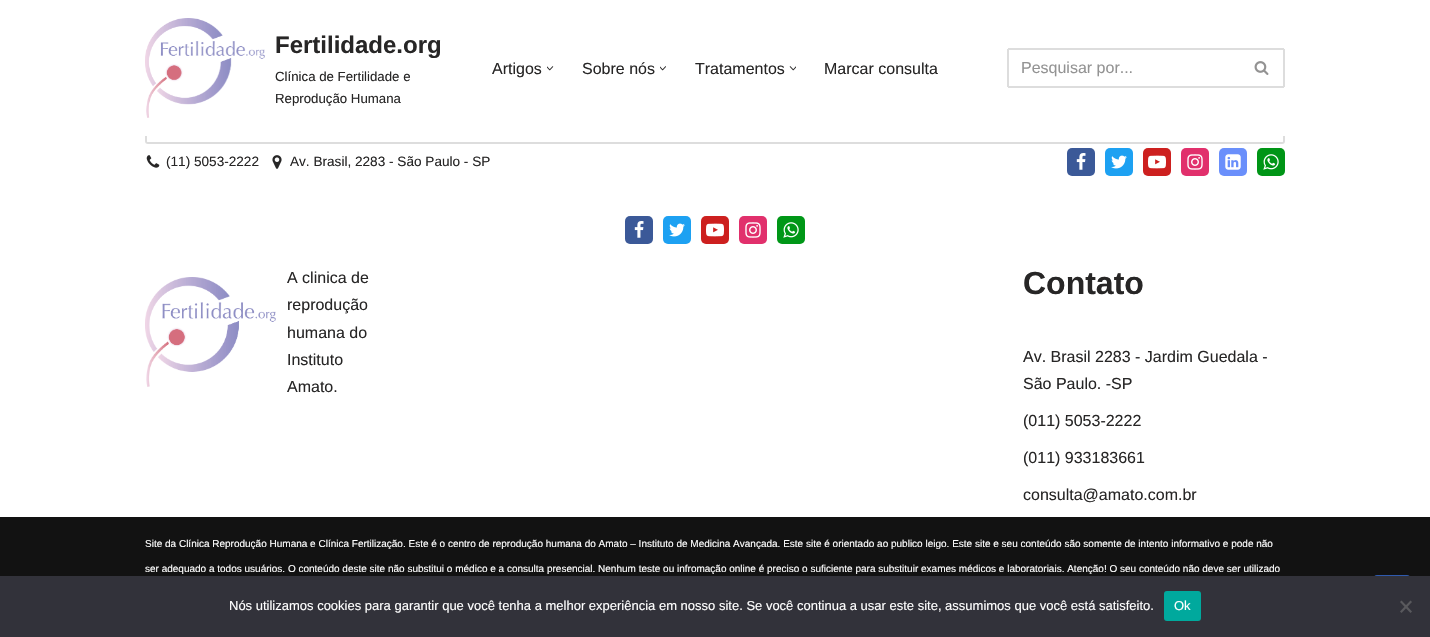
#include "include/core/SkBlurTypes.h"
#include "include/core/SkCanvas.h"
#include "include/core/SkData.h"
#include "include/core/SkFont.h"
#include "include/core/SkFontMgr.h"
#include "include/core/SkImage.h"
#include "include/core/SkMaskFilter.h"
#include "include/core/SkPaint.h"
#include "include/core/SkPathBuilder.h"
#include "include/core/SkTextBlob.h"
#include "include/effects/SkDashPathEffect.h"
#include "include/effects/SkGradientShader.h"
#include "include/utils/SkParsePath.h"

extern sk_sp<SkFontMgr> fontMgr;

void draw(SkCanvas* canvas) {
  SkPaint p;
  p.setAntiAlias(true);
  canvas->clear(SK_ColorWHITE);
  p.setColor(SkColorSetRGB(221, 221, 221));
  canvas->drawPath(SkPathBuilder(SkPathFillType::kEvenOdd).moveTo(148, 102).lineTo(1240, 102).lineTo(1240, 144).lineTo(148, 144).cubicTo(146, 144, 145, 143, 145, 141).lineTo(145, 105).cubicTo(145, 103, 146, 102, 148, 102).close().moveTo(148, 104).lineTo(1240, 104).lineTo(1240, 142).lineTo(148, 142).cubicTo(147, 142, 147, 142, 147, 141).lineTo(147, 105).cubicTo(147, 104, 147, 104, 148, 104).close().detach(), p);
  canvas->drawPath(SkPathBuilder(SkPathFillType::kEvenOdd).moveTo(1240, 102).lineTo(1282, 102).cubicTo(1284, 102, 1285, 103, 1285, 105).lineTo(1285, 141).cubicTo(1285, 143, 1284, 144, 1282, 144).lineTo(1240, 144).close().moveTo(1240, 104).lineTo(1282, 104).cubicTo(1283, 104, 1283, 104, 1283, 105).lineTo(1283, 141).cubicTo(1283, 142, 1283, 142, 1282, 142).lineTo(1240, 142).close().detach(), p);
  p.setColor(SK_ColorWHITE);
  canvas->drawRect(SkRect::MakeLTRB(145, 102, 1285, 136), p);
  canvas->drawImageRect(SkImages::DeferredFromEncodedData(SkData::MakeFromFileName("images/1.png")), SkRect::MakeLTRB(145, 18, 265, 118), SkSamplingOptions());
  canvas->drawImageRect(SkImages::DeferredFromEncodedData(SkData::MakeFromFileName("images/2.png")), SkRect::MakeLTRB(547, 66, 554, 71), SkSamplingOptions());
  canvas->drawImageRect(SkImages::DeferredFromEncodedData(SkData::MakeFromFileName("images/3.png")), SkRect::MakeLTRB(660, 66, 666, 71), SkSamplingOptions());
  canvas->drawImageRect(SkImages::DeferredFromEncodedData(SkData::MakeFromFileName("images/4.png")), SkRect::MakeLTRB(789, 66, 796, 71), SkSamplingOptions());
  p.setColor(SkColorSetRGB(221, 221, 221));
  canvas->drawRect(SkRect::MakeLTRB(1008, 48, 1284, 50), p);
  canvas->drawRect(SkRect::MakeLTRB(1008, 86, 1240, 88), p);
  canvas->drawRect(SkRect::MakeLTRB(1007, 49, 1009, 87), p);
  canvas->drawRect(SkRect::MakeLTRB(1283, 49, 1285, 87), p);
  canvas->drawRect(SkRect::MakeLTRB(1240, 86, 1284, 88), p);
  canvas->drawImageRect(SkImages::DeferredFromEncodedData(SkData::MakeFromFileName("images/5.png")), SkRect::MakeLTRB(1254, 61, 1269, 75), SkSamplingOptions());
  canvas->drawImageRect(SkImages::DeferredFromEncodedData(SkData::MakeFromFileName("images/6.png")), SkRect::MakeLTRB(146, 155, 160, 168), SkSamplingOptions());
  canvas->drawImageRect(SkImages::DeferredFromEncodedData(SkData::MakeFromFileName("images/7.png")), SkRect::MakeLTRB(272, 155, 282, 169), SkSamplingOptions());
  p.setColor(SkColorSetRGB(59, 89, 152));
  canvas->drawRoundRect(SkRect::MakeLTRB(1067, 148, 1095, 176), 5, 5, p);
  canvas->drawImageRect(SkImages::DeferredFromEncodedData(SkData::MakeFromFileName("images/8.png")), SkRect::MakeLTRB(1076, 153, 1086, 170), SkSamplingOptions());
  p.setColor(SkColorSetRGB(29, 161, 242));
  canvas->drawRoundRect(SkRect::MakeLTRB(1105, 148, 1133, 176), 5, 5, p);
  canvas->drawImageRect(SkImages::DeferredFromEncodedData(SkData::MakeFromFileName("images/9.png")), SkRect::MakeLTRB(1111, 155, 1127, 169), SkSamplingOptions());
  p.setColor(SkColorSetRGB(205, 32, 31));
  canvas->drawRoundRect(SkRect::MakeLTRB(1143, 148, 1171, 176), 5, 5, p);
  canvas->drawImageRect(SkImages::DeferredFromEncodedData(SkData::MakeFromFileName("images/10.png")), SkRect::MakeLTRB(1148, 155, 1166, 169), SkSamplingOptions());
  p.setColor(SkColorSetRGB(225, 48, 108));
  canvas->drawRoundRect(SkRect::MakeLTRB(1181, 148, 1209, 176), 5, 5, p);
  canvas->drawImageRect(SkImages::DeferredFromEncodedData(SkData::MakeFromFileName("images/11.png")), SkRect::MakeLTRB(1187, 154, 1203, 170), SkSamplingOptions());
  p.setColor(SkColorSetRGB(106, 143, 251));
  canvas->drawRoundRect(SkRect::MakeLTRB(1219, 148, 1247, 176), 5, 5, p);
  canvas->drawImageRect(SkImages::DeferredFromEncodedData(SkData::MakeFromFileName("images/12.png")), SkRect::MakeLTRB(1225, 154, 1241, 170), SkSamplingOptions());
  p.setColor(SkColorSetRGB(0, 149, 22));
  canvas->drawRoundRect(SkRect::MakeLTRB(1257, 148, 1285, 176), 5, 5, p);
  canvas->drawImageRect(SkImages::DeferredFromEncodedData(SkData::MakeFromFileName("images/13.png")), SkRect::MakeLTRB(1263, 154, 1279, 170), SkSamplingOptions());
  p.setColor(SkColorSetRGB(59, 89, 152));
  canvas->drawRoundRect(SkRect::MakeLTRB(625, 216, 653, 244), 5, 5, p);
  canvas->drawImageRect(SkImages::DeferredFromEncodedData(SkData::MakeFromFileName("images/8.png")), SkRect::MakeLTRB(634, 221, 644, 238), SkSamplingOptions());
  p.setColor(SkColorSetRGB(29, 161, 242));
  canvas->drawRoundRect(SkRect::MakeLTRB(663, 216, 691, 244), 5, 5, p);
  canvas->drawImageRect(SkImages::DeferredFromEncodedData(SkData::MakeFromFileName("images/9.png")), SkRect::MakeLTRB(669, 223, 685, 237), SkSamplingOptions());
  p.setColor(SkColorSetRGB(205, 32, 31));
  canvas->drawRoundRect(SkRect::MakeLTRB(701, 216, 729, 244), 5, 5, p);
  canvas->drawImageRect(SkImages::DeferredFromEncodedData(SkData::MakeFromFileName("images/10.png")), SkRect::MakeLTRB(706, 223, 724, 237), SkSamplingOptions());
  p.setColor(SkColorSetRGB(225, 48, 108));
  canvas->drawRoundRect(SkRect::MakeLTRB(739, 216, 767, 244), 5, 5, p);
  canvas->drawImageRect(SkImages::DeferredFromEncodedData(SkData::MakeFromFileName("images/11.png")), SkRect::MakeLTRB(745, 222, 761, 238), SkSamplingOptions());
  p.setColor(SkColorSetRGB(0, 151, 23));
  canvas->drawRoundRect(SkRect::MakeLTRB(777, 216, 805, 244), 5, 5, p);
  canvas->drawImageRect(SkImages::DeferredFromEncodedData(SkData::MakeFromFileName("images/14.png")), SkRect::MakeLTRB(783, 222, 799, 238), SkSamplingOptions());
  canvas->drawImageRect(SkImages::DeferredFromEncodedData(SkData::MakeFromFileName("images/15.png")), SkRect::MakeLTRB(145, 277, 276, 387), SkSamplingOptions());
  p.setColor(SkColorSetRGB(18, 18, 18));
  canvas->drawRect(SkRect::MakeLTRB(0, 517, 1430, 576), p);
  p.setColor(SkColorSetRGB(47, 90, 174));
  canvas->drawRoundRect(SkRect::MakeLTRB(1374, 575, 1410, 607), 3, 3, p);
  p.setColor(SkColorSetRGB(50, 50, 58));
  canvas->drawRect(SkRect::MakeLTRB(0, 576, 1430, 637), p);
  p.setColor(SkColorSetRGB(0, 169, 157));
  canvas->drawRoundRect(SkRect::MakeLTRB(1164, 591, 1201, 621), 3, 3, p);
  p.setColor(SkColorSetRGB(89, 89, 93));
  canvas->drawPath(SkPathBuilder().moveTo(1410.5f, 600.5f).lineTo(1412, 602).lineTo(1401.5f, 613).lineTo(1400, 611.5f).close().detach(), p);
  canvas->drawPath(SkPathBuilder().moveTo(1400, 602).lineTo(1401.5f, 600.5f).lineTo(1412, 611.5f).lineTo(1410.5f, 613).close().detach(), p);
  SkFont font1(fontMgr->matchFamilyStyle("Liberation Sans", SkFontStyle::Bold()), 24);
  font1.setSubpixel(true);
  p.setColor(SkColorSetRGB(39, 38, 38));
  canvas->drawString("Fertilidade.org", 275, 53, font1, p);
  SkFont font2(fontMgr->matchFamilyStyle("Liberation Sans", SkFontStyle::Normal()), 13.25f);
  font2.setSubpixel(true);
  canvas->drawString("Clínica de Fertilidade e", 275, 81, font2, p);
  canvas->drawString("Reprodução Humana", 275, 103, font2, p);
  SkFont font3(fontMgr->matchFamilyStyle("Liberation Sans", SkFontStyle::Normal()), 16);
  font3.setSubpixel(true);
  canvas->drawString("Artigos", 492, 74, font3, p);
  canvas->drawString("Sobre nós", 582, 74, font3, p);
  canvas->drawString("Tratamentos", 695, 74, font3, p);
  canvas->drawString("Marcar consulta", 824, 74, font3, p);
  p.setColor(SkColorSetRGB(147, 147, 147));
  canvas->drawString("Pesquisar por...", 1021, 73, font3, p);
  SkFont font4(fontMgr->matchFamilyStyle("Liberation Sans", SkFontStyle::Normal()), 13.6f);
  font4.setSubpixel(true);
  p.setColor(SkColorSetRGB(39, 38, 38));
  canvas->drawString("(11) 5053-2222", 166, 166, font4, p);
  canvas->drawString("Av. Brasil, 2283 - São Paulo - SP", 290, 166, font4, p);
  canvas->drawString("A clinica de", 287, 283, font3, p);
  canvas->drawString("reprodução", 287, 310, font3, p);
  canvas->drawString("humana do", 287, 338, font3, p);
  canvas->drawString("Instituto", 287, 365, font3, p);
  canvas->drawString("Amato.", 287, 392, font3, p);
  SkFont font5(fontMgr->matchFamilyStyle("Liberation Sans", SkFontStyle::Bold()), 32);
  font5.setSubpixel(true);
  canvas->drawString("Contato", 1023, 294, font5, p);
  canvas->drawString("Av. Brasil 2283 - Jardim Guedala -", 1023, 362, font3, p);
  canvas->drawString("São Paulo. -SP", 1023, 389, font3, p);
  canvas->drawString("(011) 5053-2222", 1023, 426, font3, p);
  canvas->drawString("(011) 933183661", 1023, 463, font3, p);
  canvas->drawString("consulta@amato.com.br", 1023, 500, font3, p);
  SkFont font6(fontMgr->matchFamilyStyle("Liberation Sans", SkFontStyle::Normal()), 10);
  font6.setSubpixel(true);
  p.setColor(SK_ColorWHITE);
  canvas->drawString("Site da Clínica Reprodução Humana e Clínica Fertilização. Este é o centro de reprodução humana do Amato – Instituto de Medicina Avançada. Este site é orientado ao publico leigo. Este site e seu conteúdo são somente de intento informativo e pode não", 145, 547, font6, p);
  canvas->drawString("ser adequado a todos usuários. O conteúdo deste site não substitui o médico e a consulta presencial. Nenhum teste ou infromação online é preciso o suficiente para substituir exames médicos e laboratoriais. Atenção! O seu conteúdo não deve ser utilizado", 145, 572, font6, p);
  SkFont font7(fontMgr->matchFamilyStyle("Liberation Sans", SkFontStyle::Normal()), 13);
  font7.setSubpixel(true);
  canvas->drawString("Nós utilizamos cookies para garantir que você tenha a melhor experiência em nosso site. Se você continua a usar este site, assumimos que você está satisfeito.", 229, 610, font7, p);
  canvas->drawString("Ok", 1174, 610, font7, p);
}
